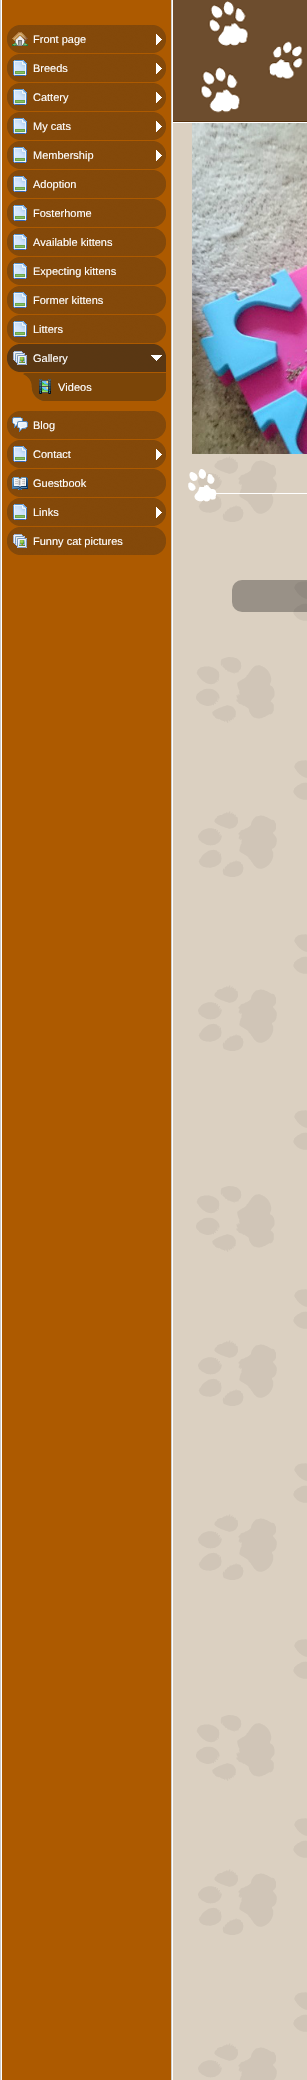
#include "include/core/SkBlurTypes.h"
#include "include/core/SkCanvas.h"
#include "include/core/SkData.h"
#include "include/core/SkFont.h"
#include "include/core/SkFontMgr.h"
#include "include/core/SkImage.h"
#include "include/core/SkMaskFilter.h"
#include "include/core/SkPaint.h"
#include "include/core/SkPathBuilder.h"
#include "include/core/SkTextBlob.h"
#include "include/effects/SkDashPathEffect.h"
#include "include/effects/SkGradientShader.h"
#include "include/utils/SkParsePath.h"

extern sk_sp<SkFontMgr> fontMgr;

void draw(SkCanvas* canvas) {
  SkPaint p;
  p.setAntiAlias(true);
  canvas->clear(SK_ColorWHITE);
  p.setColor(SkColorSetRGB(204, 204, 204));
  canvas->drawRect(SkRect::MakeLTRB(0, 0, 1, 2080), p);
  p.setColor(SkColorSetRGB(173, 90, 0));
  canvas->drawRect(SkRect::MakeLTRB(2, 0, 171, 2080), p);
  canvas->drawImageRect(SkImages::DeferredFromEncodedData(SkData::MakeFromFileName("images/1.png")), SkRect::MakeLTRB(7, 25, 166, 53), SkSamplingOptions());
  canvas->drawImageRect(SkImages::DeferredFromEncodedData(SkData::MakeFromFileName("images/2.png")), SkRect::MakeLTRB(12, 32, 28, 46), SkSamplingOptions());
  canvas->drawImageRect(SkImages::DeferredFromEncodedData(SkData::MakeFromFileName("images/3.png")), SkRect::MakeLTRB(156, 34, 162, 45), SkSamplingOptions());
  canvas->drawImageRect(SkImages::DeferredFromEncodedData(SkData::MakeFromFileName("images/1.png")), SkRect::MakeLTRB(7, 54, 166, 82), SkSamplingOptions());
  canvas->drawImageRect(SkImages::DeferredFromEncodedData(SkData::MakeFromFileName("images/4.png")), SkRect::MakeLTRB(13, 60, 27, 76), SkSamplingOptions());
  canvas->drawImageRect(SkImages::DeferredFromEncodedData(SkData::MakeFromFileName("images/3.png")), SkRect::MakeLTRB(156, 63, 162, 74), SkSamplingOptions());
  canvas->drawImageRect(SkImages::DeferredFromEncodedData(SkData::MakeFromFileName("images/1.png")), SkRect::MakeLTRB(7, 83, 166, 111), SkSamplingOptions());
  canvas->drawImageRect(SkImages::DeferredFromEncodedData(SkData::MakeFromFileName("images/4.png")), SkRect::MakeLTRB(13, 89, 27, 105), SkSamplingOptions());
  canvas->drawImageRect(SkImages::DeferredFromEncodedData(SkData::MakeFromFileName("images/3.png")), SkRect::MakeLTRB(156, 92, 162, 103), SkSamplingOptions());
  canvas->drawImageRect(SkImages::DeferredFromEncodedData(SkData::MakeFromFileName("images/1.png")), SkRect::MakeLTRB(7, 112, 166, 140), SkSamplingOptions());
  canvas->drawImageRect(SkImages::DeferredFromEncodedData(SkData::MakeFromFileName("images/4.png")), SkRect::MakeLTRB(13, 118, 27, 134), SkSamplingOptions());
  canvas->drawImageRect(SkImages::DeferredFromEncodedData(SkData::MakeFromFileName("images/3.png")), SkRect::MakeLTRB(156, 121, 162, 132), SkSamplingOptions());
  canvas->drawImageRect(SkImages::DeferredFromEncodedData(SkData::MakeFromFileName("images/1.png")), SkRect::MakeLTRB(7, 141, 166, 169), SkSamplingOptions());
  canvas->drawImageRect(SkImages::DeferredFromEncodedData(SkData::MakeFromFileName("images/4.png")), SkRect::MakeLTRB(13, 147, 27, 163), SkSamplingOptions());
  canvas->drawImageRect(SkImages::DeferredFromEncodedData(SkData::MakeFromFileName("images/3.png")), SkRect::MakeLTRB(156, 150, 162, 161), SkSamplingOptions());
  canvas->drawImageRect(SkImages::DeferredFromEncodedData(SkData::MakeFromFileName("images/1.png")), SkRect::MakeLTRB(7, 170, 166, 198), SkSamplingOptions());
  canvas->drawImageRect(SkImages::DeferredFromEncodedData(SkData::MakeFromFileName("images/4.png")), SkRect::MakeLTRB(13, 176, 27, 192), SkSamplingOptions());
  canvas->drawImageRect(SkImages::DeferredFromEncodedData(SkData::MakeFromFileName("images/1.png")), SkRect::MakeLTRB(7, 199, 166, 227), SkSamplingOptions());
  canvas->drawImageRect(SkImages::DeferredFromEncodedData(SkData::MakeFromFileName("images/4.png")), SkRect::MakeLTRB(13, 205, 27, 221), SkSamplingOptions());
  canvas->drawImageRect(SkImages::DeferredFromEncodedData(SkData::MakeFromFileName("images/1.png")), SkRect::MakeLTRB(7, 228, 166, 256), SkSamplingOptions());
  canvas->drawImageRect(SkImages::DeferredFromEncodedData(SkData::MakeFromFileName("images/4.png")), SkRect::MakeLTRB(13, 234, 27, 250), SkSamplingOptions());
  canvas->drawImageRect(SkImages::DeferredFromEncodedData(SkData::MakeFromFileName("images/1.png")), SkRect::MakeLTRB(7, 257, 166, 285), SkSamplingOptions());
  canvas->drawImageRect(SkImages::DeferredFromEncodedData(SkData::MakeFromFileName("images/4.png")), SkRect::MakeLTRB(13, 263, 27, 279), SkSamplingOptions());
  canvas->drawImageRect(SkImages::DeferredFromEncodedData(SkData::MakeFromFileName("images/1.png")), SkRect::MakeLTRB(7, 286, 166, 314), SkSamplingOptions());
  canvas->drawImageRect(SkImages::DeferredFromEncodedData(SkData::MakeFromFileName("images/4.png")), SkRect::MakeLTRB(13, 292, 27, 308), SkSamplingOptions());
  canvas->drawImageRect(SkImages::DeferredFromEncodedData(SkData::MakeFromFileName("images/1.png")), SkRect::MakeLTRB(7, 315, 166, 343), SkSamplingOptions());
  canvas->drawImageRect(SkImages::DeferredFromEncodedData(SkData::MakeFromFileName("images/4.png")), SkRect::MakeLTRB(13, 321, 27, 337), SkSamplingOptions());
  canvas->drawImageRect(SkImages::DeferredFromEncodedData(SkData::MakeFromFileName("images/5.png")), SkRect::MakeLTRB(7, 344, 166, 372), SkSamplingOptions());
  canvas->drawImageRect(SkImages::DeferredFromEncodedData(SkData::MakeFromFileName("images/6.png")), SkRect::MakeLTRB(13, 351, 27, 365), SkSamplingOptions());
  canvas->drawImageRect(SkImages::DeferredFromEncodedData(SkData::MakeFromFileName("images/7.png")), SkRect::MakeLTRB(151, 355, 162, 361), SkSamplingOptions());
  canvas->drawImageRect(SkImages::DeferredFromEncodedData(SkData::MakeFromFileName("images/8.png")), SkRect::MakeLTRB(23, 373, 166, 401), SkSamplingOptions());
  canvas->drawImageRect(SkImages::DeferredFromEncodedData(SkData::MakeFromFileName("images/9.png")), SkRect::MakeLTRB(39, 379, 51, 394), SkSamplingOptions());
  canvas->drawImageRect(SkImages::DeferredFromEncodedData(SkData::MakeFromFileName("images/1.png")), SkRect::MakeLTRB(7, 411, 166, 439), SkSamplingOptions());
  canvas->drawImageRect(SkImages::DeferredFromEncodedData(SkData::MakeFromFileName("images/10.png")), SkRect::MakeLTRB(12, 417, 28, 432), SkSamplingOptions());
  canvas->drawImageRect(SkImages::DeferredFromEncodedData(SkData::MakeFromFileName("images/1.png")), SkRect::MakeLTRB(7, 440, 166, 468), SkSamplingOptions());
  canvas->drawImageRect(SkImages::DeferredFromEncodedData(SkData::MakeFromFileName("images/4.png")), SkRect::MakeLTRB(13, 446, 27, 462), SkSamplingOptions());
  canvas->drawImageRect(SkImages::DeferredFromEncodedData(SkData::MakeFromFileName("images/3.png")), SkRect::MakeLTRB(156, 449, 162, 460), SkSamplingOptions());
  canvas->drawImageRect(SkImages::DeferredFromEncodedData(SkData::MakeFromFileName("images/1.png")), SkRect::MakeLTRB(7, 469, 166, 497), SkSamplingOptions());
  canvas->drawImageRect(SkImages::DeferredFromEncodedData(SkData::MakeFromFileName("images/11.png")), SkRect::MakeLTRB(12, 477, 28, 490), SkSamplingOptions());
  canvas->drawImageRect(SkImages::DeferredFromEncodedData(SkData::MakeFromFileName("images/1.png")), SkRect::MakeLTRB(7, 498, 166, 526), SkSamplingOptions());
  canvas->drawImageRect(SkImages::DeferredFromEncodedData(SkData::MakeFromFileName("images/4.png")), SkRect::MakeLTRB(13, 504, 27, 520), SkSamplingOptions());
  canvas->drawImageRect(SkImages::DeferredFromEncodedData(SkData::MakeFromFileName("images/3.png")), SkRect::MakeLTRB(156, 507, 162, 518), SkSamplingOptions());
  canvas->drawImageRect(SkImages::DeferredFromEncodedData(SkData::MakeFromFileName("images/1.png")), SkRect::MakeLTRB(7, 527, 166, 555), SkSamplingOptions());
  canvas->drawImageRect(SkImages::DeferredFromEncodedData(SkData::MakeFromFileName("images/12.png")), SkRect::MakeLTRB(13, 534, 27, 548), SkSamplingOptions());
  p.setColor(SkColorSetRGB(204, 204, 204));
  canvas->drawRect(SkRect::MakeLTRB(171, 0, 172, 2080), p);
  p.setColor(SkColorSetRGB(219, 208, 193));
  canvas->drawRect(SkRect::MakeLTRB(173, 123, 307, 2080), p);
  canvas->drawImageRect(SkImages::DeferredFromEncodedData(SkData::MakeFromFileName("images/13.png")), SkRect::MakeLTRB(196, 456, 307, 2080), SkSamplingOptions());
  canvas->drawImageRect(SkImages::DeferredFromEncodedData(SkData::MakeFromFileName("images/14.png")), SkRect::MakeLTRB(173, 0, 307, 122), SkSamplingOptions());
  canvas->drawImageRect(SkImages::DeferredFromEncodedData(SkData::MakeFromFileName("images/15.png")), SkRect::MakeLTRB(192, 123, 307, 454), SkSamplingOptions());
  canvas->drawImageRect(SkImages::DeferredFromEncodedData(SkData::MakeFromFileName("images/16.png")), SkRect::MakeLTRB(188, 469, 217, 502), SkSamplingOptions());
  p.setColor(SK_ColorWHITE);
  canvas->drawRect(SkRect::MakeLTRB(217, 493, 307, 494), p);
  p.setColor(SkColorSetARGB(77, 0, 0, 0));
  canvas->drawRoundRect(SkRect::MakeLTRB(232, 580, 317, 612), 10, 10, p);
  SkFont font1(fontMgr->matchFamilyStyle("Liberation Sans", SkFontStyle::Normal()), 11);
  font1.setSubpixel(true);
  p.setColor(SK_ColorWHITE);
  canvas->drawString("Front page", 33, 43, font1, p);
  canvas->drawString("Breeds", 33, 72, font1, p);
  canvas->drawString("Cattery", 33, 101, font1, p);
  canvas->drawString("My cats", 33, 130, font1, p);
  canvas->drawString("Membership", 33, 159, font1, p);
  canvas->drawString("Adoption", 33, 188, font1, p);
  canvas->drawString("Fosterhome", 33, 217, font1, p);
  canvas->drawString("Available kittens", 33, 246, font1, p);
  canvas->drawString("Expecting kittens", 33, 275, font1, p);
  canvas->drawString("Former kittens", 33, 304, font1, p);
  canvas->drawString("Litters", 33, 333, font1, p);
  canvas->drawString("Gallery", 33, 362, font1, p);
  canvas->drawString("Videos", 58, 391, font1, p);
  canvas->drawString("Blog", 33, 429, font1, p);
  canvas->drawString("Contact", 33, 458, font1, p);
  canvas->drawString("Guestbook", 33, 487, font1, p);
  canvas->drawString("Links", 33, 516, font1, p);
  canvas->drawString("Funny cat pictures", 33, 545, font1, p);
}
